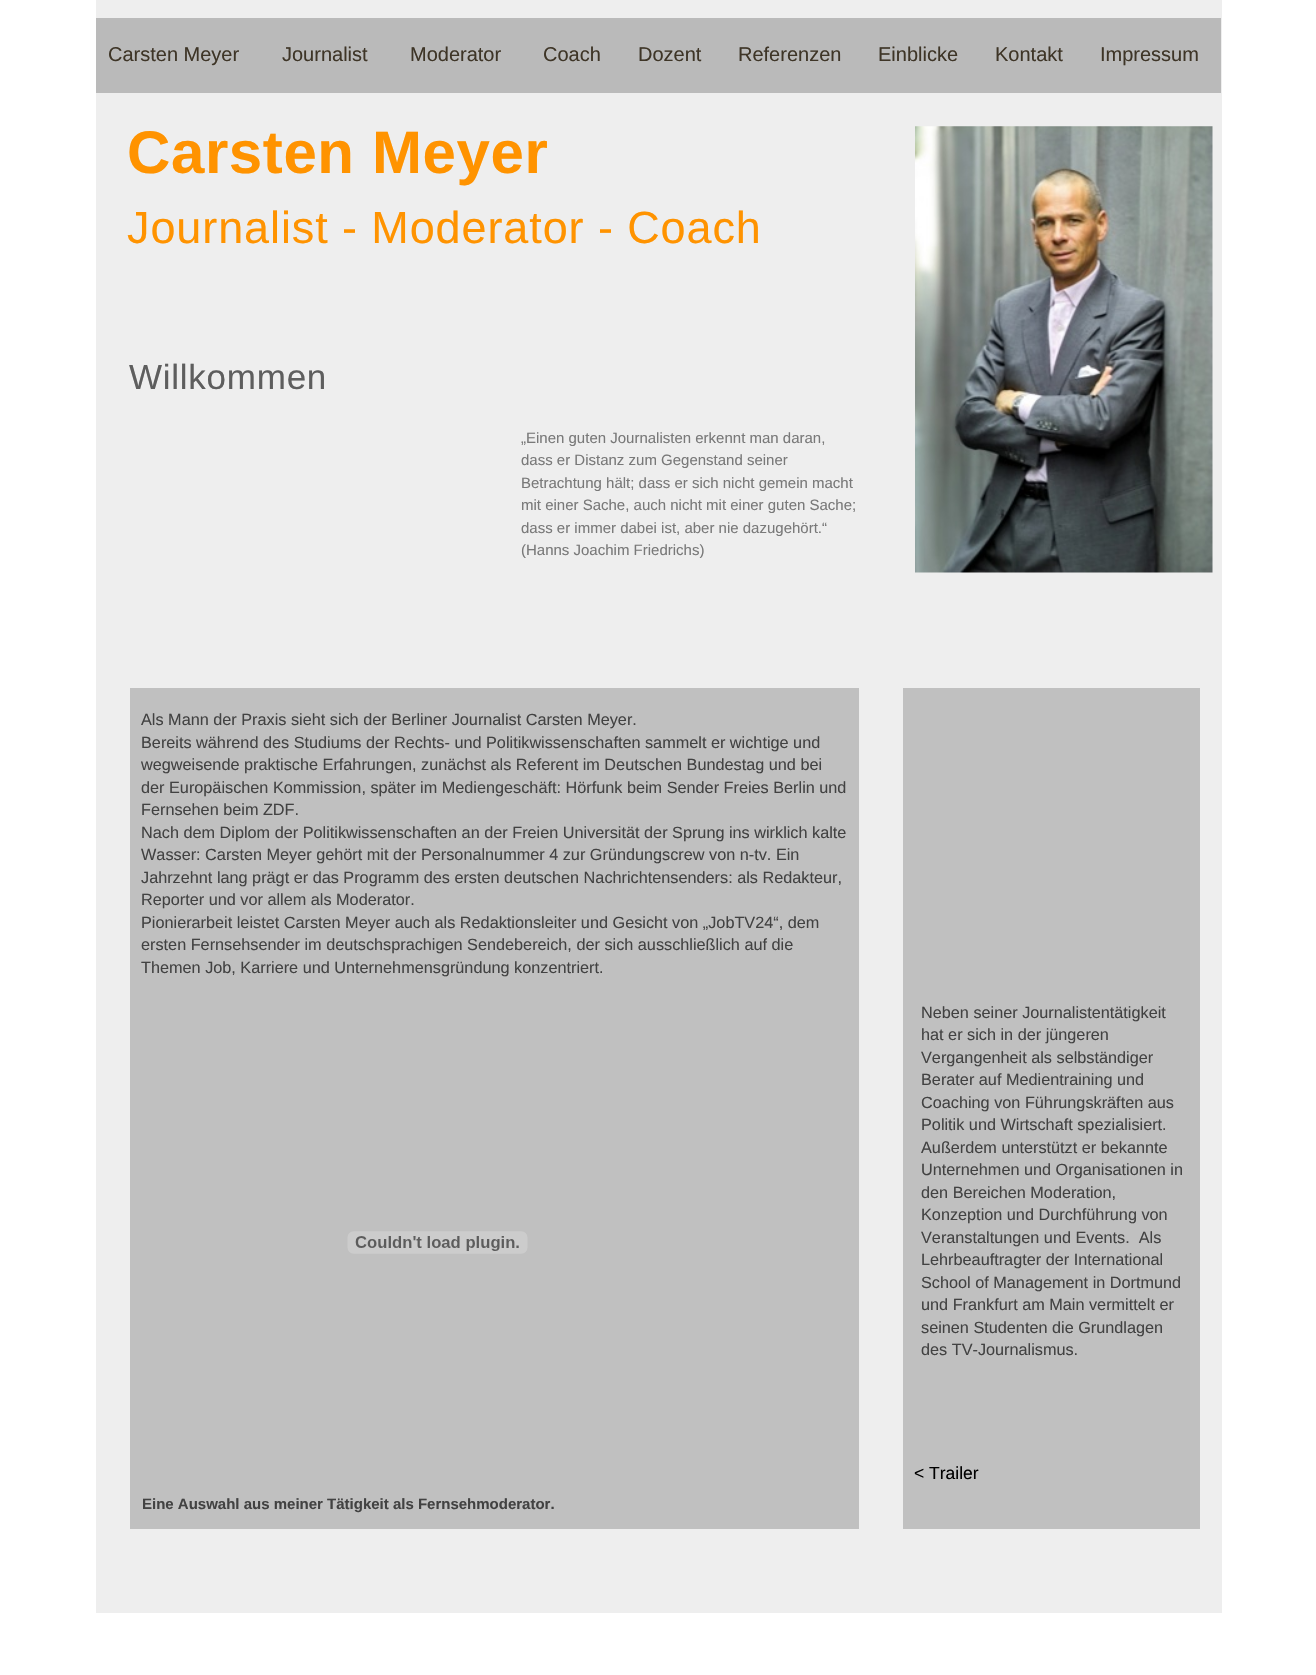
#include "include/core/SkBlurTypes.h"
#include "include/core/SkCanvas.h"
#include "include/core/SkData.h"
#include "include/core/SkFont.h"
#include "include/core/SkFontMgr.h"
#include "include/core/SkImage.h"
#include "include/core/SkMaskFilter.h"
#include "include/core/SkPaint.h"
#include "include/core/SkPathBuilder.h"
#include "include/core/SkTextBlob.h"
#include "include/effects/SkDashPathEffect.h"
#include "include/effects/SkGradientShader.h"
#include "include/utils/SkParsePath.h"

extern sk_sp<SkFontMgr> fontMgr;

void draw(SkCanvas* canvas) {
  SkPaint p;
  p.setAntiAlias(true);
  auto spacedText = [&](const char* s, float x, float y, const SkFont& font, const SkPaint& ink, float letter, float word) {
    std::vector<SkGlyphID> glyphs(font.countText(s, strlen(s), SkTextEncoding::kUTF8));
    std::vector<float> xs(glyphs.size());
    font.textToGlyphs(s, strlen(s), SkTextEncoding::kUTF8, glyphs);
    font.getXPos(glyphs, xs, x);
    float extra = 0;
    for (size_t i = 0; i < glyphs.size(); i++) {
      xs[i] += extra;
      extra += letter + word * (glyphs[i] == font.unicharToGlyph(' '));
    }
    canvas->drawTextBlob(SkTextBlob::MakeFromPosHGlyphs(glyphs, xs, y, font), 0, 0, ink);
  };
  canvas->clear(SK_ColorWHITE);
  p.setColor(SkColorSetRGB(238, 238, 238));
  canvas->drawRect(SkRect::MakeLTRB(96, 0, 1222, 1613), p);
  p.setColor(SkColorSetRGB(186, 186, 186));
  canvas->drawRect(SkRect::MakeLTRB(96, 18, 1221, 93), p);
  canvas->drawImageRect(SkImages::DeferredFromEncodedData(SkData::MakeFromFileName("images/1.png")), SkRect::MakeLTRB(915, 126, 1213, 573), SkSamplingOptions());
  p.setColor(SkColorSetRGB(192, 192, 192));
  canvas->drawRect(SkRect::MakeLTRB(130, 688, 859, 1529), p);
  canvas->drawRect(SkRect::MakeLTRB(903, 688, 1200, 1529), p);
  canvas->drawImageRect(SkImages::DeferredFromEncodedData(SkData::MakeFromFileName("images/2.png")), SkRect::MakeLTRB(347, 1231, 528, 1254), SkSamplingOptions());
  SkFont font1(fontMgr->matchFamilyStyle("Liberation Sans", SkFontStyle::Normal()), 20);
  font1.setSubpixel(true);
  p.setColor(SkColorSetRGB(62, 53, 39));
  canvas->drawString("Carsten Meyer", 108, 61, font1, p);
  canvas->drawString("Journalist", 282, 61, font1, p);
  canvas->drawString("Moderator", 410, 61, font1, p);
  canvas->drawString("Coach", 543, 61, font1, p);
  canvas->drawString("Dozent", 638, 61, font1, p);
  canvas->drawString("Referenzen", 738, 61, font1, p);
  canvas->drawString("Einblicke", 878, 61, font1, p);
  canvas->drawString("Kontakt", 995, 61, font1, p);
  canvas->drawString("Impressum", 1100, 61, font1, p);
  SkFont font2(fontMgr->matchFamilyStyle("Liberation Sans", SkFontStyle::Bold()), 60);
  font2.setSubpixel(true);
  p.setColor(SkColorSetRGB(255, 147, 0));
  spacedText("Carsten Meyer", 127, 173, font2, p, 0.6f, 0);
  SkFont font3(fontMgr->matchFamilyStyle("Liberation Sans", SkFontStyle::Normal()), 45);
  font3.setSubpixel(true);
  spacedText("Journalist - Moderator - Coach", 127, 243, font3, p, 0.9f, 0);
  SkFont font4(fontMgr->matchFamilyStyle("Liberation Sans", SkFontStyle::Normal()), 35);
  font4.setSubpixel(true);
  p.setColor(SkColorSetRGB(94, 94, 94));
  spacedText("Willkommen", 129, 389, font4, p, 0.75f, 0);
  SkFont font5(fontMgr->matchFamilyStyle("Liberation Sans", SkFontStyle::Normal()), 15);
  font5.setSubpixel(true);
  p.setColor(SkColorSetRGB(121, 121, 121));
  canvas->drawString("„Einen guten Journalisten erkennt man daran,", 521, 443, font5, p);
  canvas->drawString("dass er Distanz zum Gegenstand seiner", 521, 465, font5, p);
  canvas->drawString("Betrachtung hält; dass er sich nicht gemein macht", 521, 488, font5, p);
  canvas->drawString("mit einer Sache, auch nicht mit einer guten Sache;", 521, 510, font5, p);
  canvas->drawString("dass er immer dabei ist, aber nie dazugehört.“", 521, 533, font5, p);
  canvas->drawString("(Hanns Joachim Friedrichs)", 521, 555, font5, p);
  SkFont font6(fontMgr->matchFamilyStyle("Liberation Sans", SkFontStyle::Normal()), 16.25f);
  font6.setSubpixel(true);
  p.setColor(SkColorSetRGB(66, 66, 66));
  canvas->drawString("Als Mann der Praxis sieht sich der Berliner Journalist Carsten Meyer.", 141, 725, font6, p);
  canvas->drawString("Bereits während des Studiums der Rechts- und Politikwissenschaften sammelt er wichtige und", 141, 748, font6, p);
  canvas->drawString("wegweisende praktische Erfahrungen, zunächst als Referent im Deutschen Bundestag und bei", 141, 770, font6, p);
  canvas->drawString("der Europäischen Kommission, später im Mediengeschäft: Hörfunk beim Sender Freies Berlin und", 141, 793, font6, p);
  canvas->drawString("Fernsehen beim ZDF.", 141, 815, font6, p);
  canvas->drawString("Nach dem Diplom der Politikwissenschaften an der Freien Universität der Sprung ins wirklich kalte", 141, 838, font6, p);
  canvas->drawString("Wasser: Carsten Meyer gehört mit der Personalnummer 4 zur Gründungscrew von n-tv. Ein", 141, 860, font6, p);
  canvas->drawString("Jahrzehnt lang prägt er das Programm des ersten deutschen Nachrichtensenders: als Redakteur,", 141, 883, font6, p);
  canvas->drawString("Reporter und vor allem als Moderator.", 141, 905, font6, p);
  canvas->drawString("Pionierarbeit leistet Carsten Meyer auch als Redaktionsleiter und Gesicht von „JobTV24“, dem", 141, 928, font6, p);
  canvas->drawString("ersten Fernsehsender im deutschsprachigen Sendebereich, der sich ausschließlich auf die", 141, 950, font6, p);
  canvas->drawString("Themen Job, Karriere und Unternehmensgründung konzentriert.", 141, 973, font6, p);
  canvas->drawString("Neben seiner Journalistentätigkeit", 921, 1018, font6, p);
  canvas->drawString("hat er sich in der jüngeren", 921, 1040, font6, p);
  canvas->drawString("Vergangenheit als selbständiger", 921, 1063, font6, p);
  canvas->drawString("Berater auf Medientraining und", 921, 1085, font6, p);
  canvas->drawString("Coaching von Führungskräften aus", 921, 1108, font6, p);
  canvas->drawString("Politik und Wirtschaft spezialisiert.", 921, 1130, font6, p);
  canvas->drawString("Außerdem unterstützt er bekannte", 921, 1153, font6, p);
  canvas->drawString("Unternehmen und Organisationen in", 921, 1175, font6, p);
  canvas->drawString("den Bereichen Moderation,", 921, 1198, font6, p);
  canvas->drawString("Konzeption und Durchführung von", 921, 1220, font6, p);
  canvas->drawString("Veranstaltungen und Events.  Als", 921, 1243, font6, p);
  canvas->drawString("Lehrbeauftragter der International", 921, 1265, font6, p);
  canvas->drawString("School of Management in Dortmund", 921, 1288, font6, p);
  canvas->drawString("und Frankfurt am Main vermittelt er", 921, 1310, font6, p);
  canvas->drawString("seinen Studenten die Grundlagen", 921, 1333, font6, p);
  canvas->drawString("des TV-Journalismus.", 921, 1355, font6, p);
  SkFont font7(fontMgr->matchFamilyStyle("Liberation Sans", SkFontStyle::Normal()), 17.5f);
  font7.setSubpixel(true);
  p.setColor(SK_ColorBLACK);
  canvas->drawString("< Trailer", 914, 1479, font7, p);
  SkFont font8(fontMgr->matchFamilyStyle("Liberation Sans", SkFontStyle::Bold()), 15);
  font8.setSubpixel(true);
  p.setColor(SkColorSetRGB(66, 66, 66));
  canvas->drawString("Eine Auswahl aus meiner Tätigkeit als Fernsehmoderator.", 142, 1509, font8, p);
}
